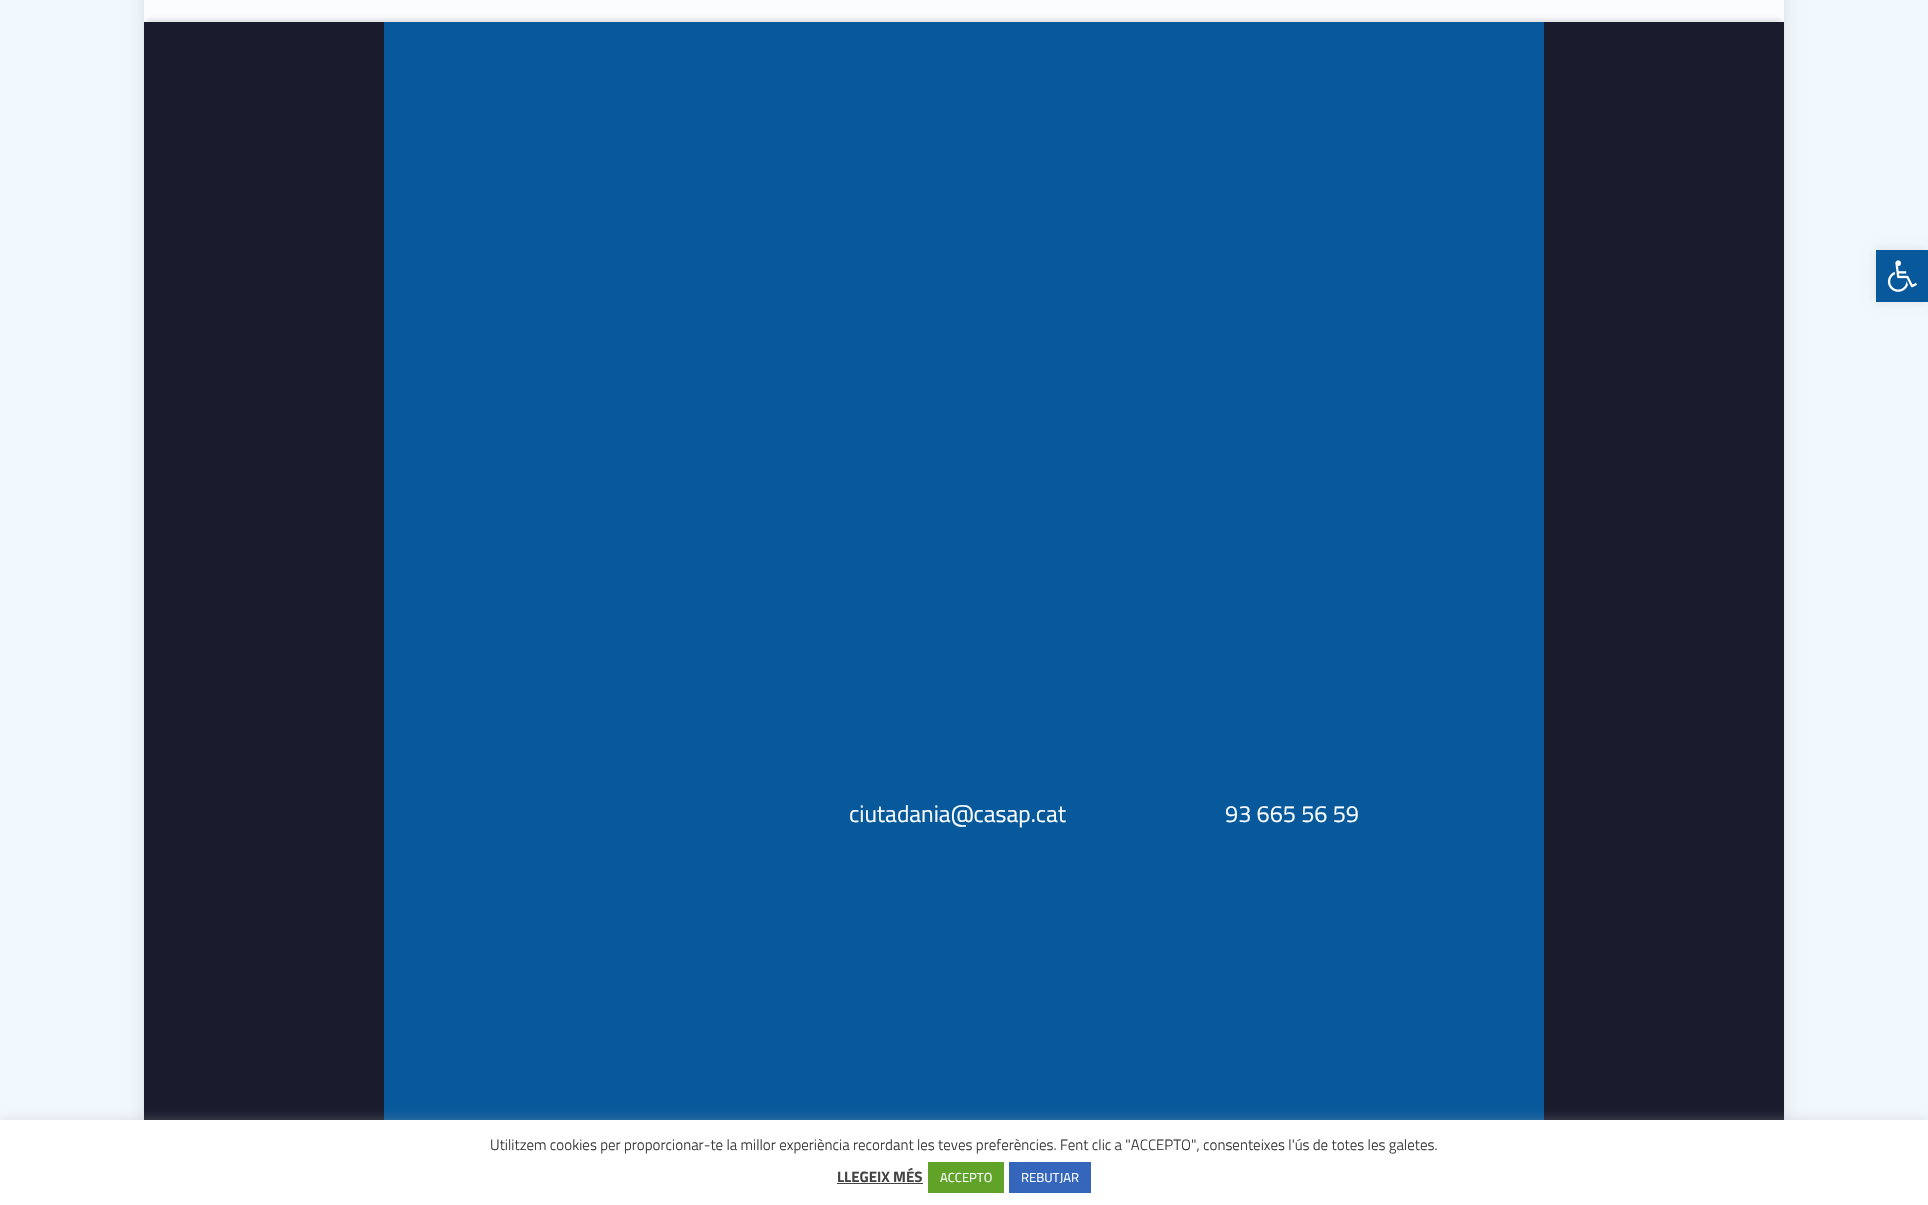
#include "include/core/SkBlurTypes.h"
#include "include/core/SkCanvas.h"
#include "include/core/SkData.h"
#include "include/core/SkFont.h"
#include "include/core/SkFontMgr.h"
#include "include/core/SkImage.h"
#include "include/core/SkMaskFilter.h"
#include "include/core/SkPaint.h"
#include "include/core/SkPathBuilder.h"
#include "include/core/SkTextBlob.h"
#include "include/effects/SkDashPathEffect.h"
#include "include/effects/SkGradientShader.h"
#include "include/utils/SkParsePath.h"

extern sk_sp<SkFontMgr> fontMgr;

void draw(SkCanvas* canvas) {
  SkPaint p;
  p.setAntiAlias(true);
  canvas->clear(SkColorSetRGB(241, 248, 254));
  p.setColor(SkColorSetARGB(26, 0, 0, 0));
  p.setMaskFilter(SkMaskFilter::MakeBlur(kNormal_SkBlurStyle, 5));
  canvas->drawRect(SkRect::MakeLTRB(1876, 250, 1928, 302), p);
  p.setMaskFilter(nullptr);
  p.setColor(SkColorSetRGB(7, 89, 155));
  canvas->drawRect(SkRect::MakeLTRB(1876, 250, 1928, 302), p);
  canvas->drawImageRect(SkImages::DeferredFromEncodedData(SkData::MakeFromFileName("images/1.png")), SkRect::MakeLTRB(1887, 260, 1917, 292), SkSamplingOptions());
  p.setColor(SkColorSetARGB(26, 0, 0, 0));
  p.setMaskFilter(SkMaskFilter::MakeBlur(kNormal_SkBlurStyle, 8));
  canvas->drawRect(SkRect::MakeLTRB(144, -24, 1784, 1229), p);
  p.setMaskFilter(nullptr);
  p.setColor(SkColorSetRGB(250, 252, 254));
  canvas->drawRect(SkRect::MakeLTRB(144, 0, 1784, 22), p);
  p.setColor(SkColorSetARGB(26, 0, 0, 0));
  p.setMaskFilter(SkMaskFilter::MakeBlur(kNormal_SkBlurStyle, 2));
  canvas->drawRect(SkRect::MakeLTRB(147, 19, 1781, 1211), p);
  p.setMaskFilter(nullptr);
  p.setColor(SkColorSetRGB(26, 28, 46));
  canvas->drawRect(SkRect::MakeLTRB(144, 22, 1784, 1120), p);
  p.setColor(SkColorSetRGB(7, 89, 155));
  canvas->drawRect(SkRect::MakeLTRB(384, 22, 1544, 1120), p);
  p.setColor(SkColorSetARGB(77, 172, 171, 171));
  p.setMaskFilter(SkMaskFilter::MakeBlur(kNormal_SkBlurStyle, 5));
  canvas->drawRect(SkRect::MakeLTRB(0, 1119, 1928, 1204), p);
  p.setMaskFilter(nullptr);
  p.setColor(SK_ColorWHITE);
  canvas->drawRect(SkRect::MakeLTRB(0, 1120, 1928, 1205), p);
  p.setColor(SkColorSetRGB(68, 68, 68));
  canvas->drawRect(SkRect::MakeLTRB(837, 1183, 923, 1184), p);
  p.setColor(SkColorSetRGB(97, 162, 41));
  canvas->drawRect(SkRect::MakeLTRB(928, 1162, 1004, 1193), p);
  p.setColor(SkColorSetRGB(53, 102, 187));
  canvas->drawRect(SkRect::MakeLTRB(1009, 1162, 1091, 1193), p);
  SkFont font1(fontMgr->matchFamilyStyle("Titillium Web", SkFontStyle::Normal()), 23.5f);
  font1.setSubpixel(true);
  p.setColor(SkColorSetRGB(250, 252, 254));
  canvas->drawString("ciutadania@casap.cat", 849, 822, font1, p);
  canvas->drawString("93 665 56 59", 1225, 822, font1, p);
  SkFont font2(fontMgr->matchFamilyStyle("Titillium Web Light", SkFontStyle(300, SkFontStyle::kNormal_Width, SkFontStyle::kUpright_Slant)), 15);
  font2.setSubpixel(true);
  p.setColor(SkColorSetRGB(51, 51, 51));
  canvas->drawString("Utilitzem cookies per proporcionar-te la millor experiència recordant les teves preferències. Fent clic a \"ACCEPTO\", consenteixes l'ús de totes les galetes.", 490, 1150, font2, p);
  SkFont font3(fontMgr->matchFamilyStyle("Titillium Web", SkFontStyle::Bold()), 15);
  font3.setSubpixel(true);
  p.setColor(SkColorSetRGB(68, 68, 68));
  canvas->drawString("LLEGEIX MÉS", 837, 1182, font3, p);
  SkFont font4(fontMgr->matchFamilyStyle("Titillium Web", SkFontStyle::Normal()), 13);
  font4.setSubpixel(true);
  p.setColor(SkColorSetRGB(250, 252, 254));
  canvas->drawString("ACCEPTO", 940, 1182, font4, p);
  canvas->drawString("REBUTJAR", 1021, 1182, font4, p);
}
